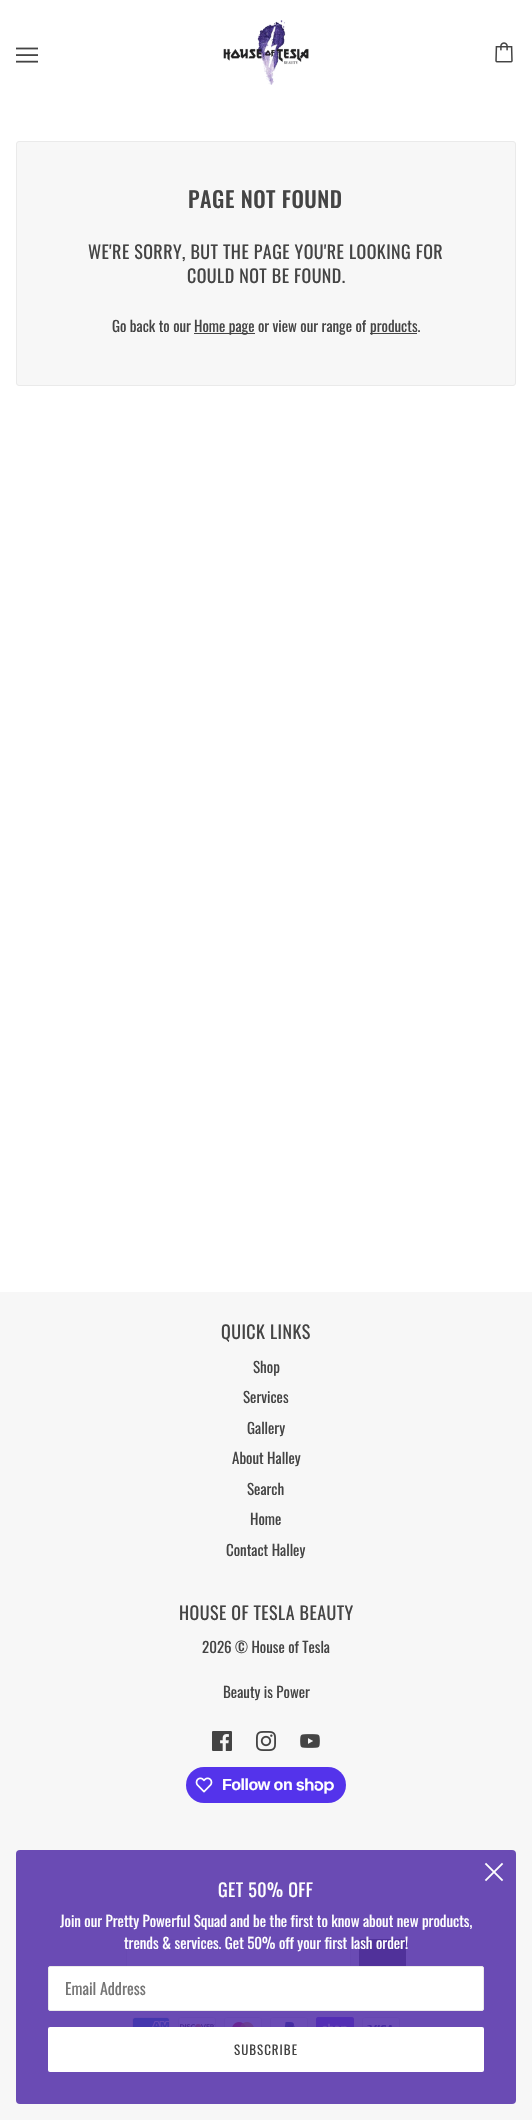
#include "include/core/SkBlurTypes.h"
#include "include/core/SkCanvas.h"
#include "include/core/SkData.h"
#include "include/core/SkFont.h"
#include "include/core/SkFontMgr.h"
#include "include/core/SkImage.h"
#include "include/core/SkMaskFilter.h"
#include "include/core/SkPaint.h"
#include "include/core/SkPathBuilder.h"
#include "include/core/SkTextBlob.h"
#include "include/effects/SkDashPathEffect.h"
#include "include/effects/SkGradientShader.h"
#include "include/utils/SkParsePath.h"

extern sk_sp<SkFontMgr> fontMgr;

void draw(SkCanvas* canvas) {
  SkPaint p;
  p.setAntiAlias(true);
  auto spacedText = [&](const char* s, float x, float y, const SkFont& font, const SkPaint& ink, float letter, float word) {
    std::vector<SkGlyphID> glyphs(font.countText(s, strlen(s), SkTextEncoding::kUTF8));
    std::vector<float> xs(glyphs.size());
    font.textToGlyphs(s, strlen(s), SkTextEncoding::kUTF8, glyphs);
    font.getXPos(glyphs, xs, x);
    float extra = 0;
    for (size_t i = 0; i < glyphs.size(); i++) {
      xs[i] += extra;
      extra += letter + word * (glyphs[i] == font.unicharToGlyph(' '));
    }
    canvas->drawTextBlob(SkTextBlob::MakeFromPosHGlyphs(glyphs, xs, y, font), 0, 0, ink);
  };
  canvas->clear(SK_ColorWHITE);
  canvas->drawImageRect(SkImages::DeferredFromEncodedData(SkData::MakeFromFileName("images/1.png")), SkRect::MakeLTRB(16, 47, 38, 63), SkSamplingOptions());
  canvas->drawImageRect(SkImages::DeferredFromEncodedData(SkData::MakeFromFileName("images/2.png")), SkRect::MakeLTRB(223, 20, 309, 85), SkSamplingOptions());
  canvas->drawImageRect(SkImages::DeferredFromEncodedData(SkData::MakeFromFileName("images/3.png")), SkRect::MakeLTRB(495, 42, 513, 63), SkSamplingOptions());
  p.setColor(SkColorSetRGB(247, 247, 247));
  canvas->drawRoundRect(SkRect::MakeLTRB(16.5f, 141.5f, 515.5f, 385.5f), 2.5f, 2.5f, p);
  p.setStyle(SkPaint::kStroke_Style);
  p.setStrokeWidth(1);
  p.setColor(SkColorSetRGB(234, 234, 234));
  canvas->drawRoundRect(SkRect::MakeLTRB(16.5f, 141.5f, 515.5f, 385.5f), 2.5f, 2.5f, p);
  p.setStyle(SkPaint::kFill_Style);
  p.setColor(SkColorSetRGB(68, 68, 68));
  canvas->drawRect(SkRect::MakeLTRB(194, 333, 255, 334), p);
  canvas->drawRect(SkRect::MakeLTRB(370, 333, 417, 334), p);
  p.setColor(SkColorSetRGB(247, 247, 247));
  canvas->drawRect(SkRect::MakeLTRB(0, 1292, 532, 2120), p);
  canvas->drawImageRect(SkImages::DeferredFromEncodedData(SkData::MakeFromFileName("images/4.png")), SkRect::MakeLTRB(212, 1731, 232, 1751), SkSamplingOptions());
  canvas->drawImageRect(SkImages::DeferredFromEncodedData(SkData::MakeFromFileName("images/5.png")), SkRect::MakeLTRB(256, 1731, 276, 1751), SkSamplingOptions());
  canvas->drawImageRect(SkImages::DeferredFromEncodedData(SkData::MakeFromFileName("images/6.png")), SkRect::MakeLTRB(300, 1734, 320, 1748), SkSamplingOptions());
  p.setColor(SkColorSetRGB(84, 51, 235));
  canvas->drawRoundRect(SkRect::MakeLTRB(186, 1767, 346, 1803), 18, 18, p);
  canvas->drawImageRect(SkImages::DeferredFromEncodedData(SkData::MakeFromFileName("images/7.png")), SkRect::MakeLTRB(195, 1777, 213, 1793), SkSamplingOptions());
  canvas->drawImageRect(SkImages::DeferredFromEncodedData(SkData::MakeFromFileName("images/8.png")), SkRect::MakeLTRB(296, 1778, 334, 1794), SkSamplingOptions());
  p.setColor(SK_ColorWHITE);
  canvas->drawRoundRect(SkRect::MakeLTRB(126.5f, 1939.5f, 350.5f, 1984.5f), 1.5f, 1.5f, p);
  p.setStyle(SkPaint::kStroke_Style);
  p.setColor(SkColorSetRGB(234, 234, 234));
  canvas->drawRoundRect(SkRect::MakeLTRB(126.5f, 1939.5f, 350.5f, 1984.5f), 1.5f, 1.5f, p);
  p.setStyle(SkPaint::kFill_Style);
  p.setColor(SkColorSetRGB(68, 68, 68));
  canvas->drawRoundRect(SkRect::MakeLTRB(359, 1939, 406, 1984), 2, 2, p);
  canvas->drawImageRect(SkImages::DeferredFromEncodedData(SkData::MakeFromFileName("images/9.png")), SkRect::MakeLTRB(132, 2017, 170, 2027), SkSamplingOptions());
  canvas->drawImageRect(SkImages::DeferredFromEncodedData(SkData::MakeFromFileName("images/10.png")), SkRect::MakeLTRB(178, 2017, 216, 2027), SkSamplingOptions());
  canvas->drawImageRect(SkImages::DeferredFromEncodedData(SkData::MakeFromFileName("images/11.png")), SkRect::MakeLTRB(224, 2017, 262, 2027), SkSamplingOptions());
  canvas->drawImageRect(SkImages::DeferredFromEncodedData(SkData::MakeFromFileName("images/12.png")), SkRect::MakeLTRB(270, 2017, 308, 2027), SkSamplingOptions());
  canvas->drawImageRect(SkImages::DeferredFromEncodedData(SkData::MakeFromFileName("images/13.png")), SkRect::MakeLTRB(316, 2017, 354, 2027), SkSamplingOptions());
  canvas->drawImageRect(SkImages::DeferredFromEncodedData(SkData::MakeFromFileName("images/14.png")), SkRect::MakeLTRB(362, 2017, 400, 2027), SkSamplingOptions());
  p.setColor(SkColorSetARGB(217, 81, 45, 168));
  canvas->drawRoundRect(SkRect::MakeLTRB(16, 1850, 516, 2104), 4, 4, p);
  canvas->drawImageRect(SkImages::DeferredFromEncodedData(SkData::MakeFromFileName("images/15.png")), SkRect::MakeLTRB(484, 1862, 504, 1882), SkSamplingOptions());
  p.setColor(SK_ColorWHITE);
  canvas->drawRoundRect(SkRect::MakeLTRB(48.5f, 1966.5f, 483.5f, 2010.5f), 1.5f, 1.5f, p);
  p.setStyle(SkPaint::kStroke_Style);
  p.setColor(SkColorSetRGB(234, 234, 234));
  canvas->drawRoundRect(SkRect::MakeLTRB(48.5f, 1966.5f, 483.5f, 2010.5f), 1.5f, 1.5f, p);
  p.setStyle(SkPaint::kFill_Style);
  p.setColor(SK_ColorWHITE);
  canvas->drawRoundRect(SkRect::MakeLTRB(48, 2027, 484, 2072), 2, 2, p);
  SkFont font1(fontMgr->matchFamilyStyle("Oswald", SkFontStyle(500, SkFontStyle::kNormal_Width, SkFontStyle::kUpright_Slant)), 22);
  font1.setSubpixel(true);
  p.setColor(SkColorSetRGB(68, 68, 68));
  spacedText("PAGE NOT FOUND", 188, 208, font1, p, 0.5f, 0);
  SkFont font2(fontMgr->matchFamilyStyle("Oswald", SkFontStyle::Normal()), 18);
  font2.setSubpixel(true);
  spacedText("WE'RE SORRY, BUT THE PAGE YOU'RE LOOKING FOR", 88, 259, font2, p, 0.45f, 0);
  spacedText("COULD NOT BE FOUND.", 187, 283, font2, p, 0.45f, 0);
  SkFont font3(fontMgr->matchFamilyStyle("Oswald", SkFontStyle::Normal()), 15);
  font3.setSubpixel(true);
  canvas->drawString("Go back to our", 112, 332, font3, p);
  canvas->drawString("Home page or view our range of", 194, 332, font3, p);
  canvas->drawString("products.", 370, 332, font3, p);
  spacedText("QUICK LINKS", 221, 1339, font2, p, 0.45f, 0);
  canvas->drawString("Shop", 253, 1373, font3, p);
  canvas->drawString("Services", 243, 1403, font3, p);
  canvas->drawString("Gallery", 247, 1434, font3, p);
  canvas->drawString("About Halley", 232, 1464, font3, p);
  canvas->drawString("Search", 247, 1495, font3, p);
  canvas->drawString("Home", 250, 1525, font3, p);
  canvas->drawString("Contact Halley", 226, 1556, font3, p);
  spacedText("HOUSE OF TESLA BEAUTY", 179, 1620, font2, p, 0.45f, 0);
  canvas->drawString("2026 © House of Tesla", 202, 1653, font3, p);
  canvas->drawString("Beauty is Power", 223, 1698, font3, p);
  SkFont font4(fontMgr->matchFamilyStyle("Liberation Sans", SkFontStyle::Bold()), 16);
  font4.setSubpixel(true);
  p.setColor(SK_ColorWHITE);
  spacedText("Follow on", 222, 1790, font4, p, -0.5f, 0);
  spacedText("GET 50% OFF", 218, 1897, font2, p, 0.45f, 0);
  canvas->drawString("Join our Pretty Powerful Squad and be the first to know about new products,", 60, 1927, font3, p);
  canvas->drawString("trends & services. Get 50% off your first lash order!", 124, 1949, font3, p);
  SkFont font5(fontMgr->matchFamilyStyle("Oswald", SkFontStyle::Normal()), 16);
  font5.setSubpixel(true);
  p.setColor(SkColorSetRGB(117, 117, 117));
  canvas->drawString("Email Address", 65, 1995, font5, p);
  SkFont font6(fontMgr->matchFamilyStyle("Oswald", SkFontStyle::Normal()), 13);
  font6.setSubpixel(true);
  p.setColor(SkColorSetRGB(68, 68, 68));
  spacedText("SUBSCRIBE", 234, 2055, font6, p, 1, 0);
}
